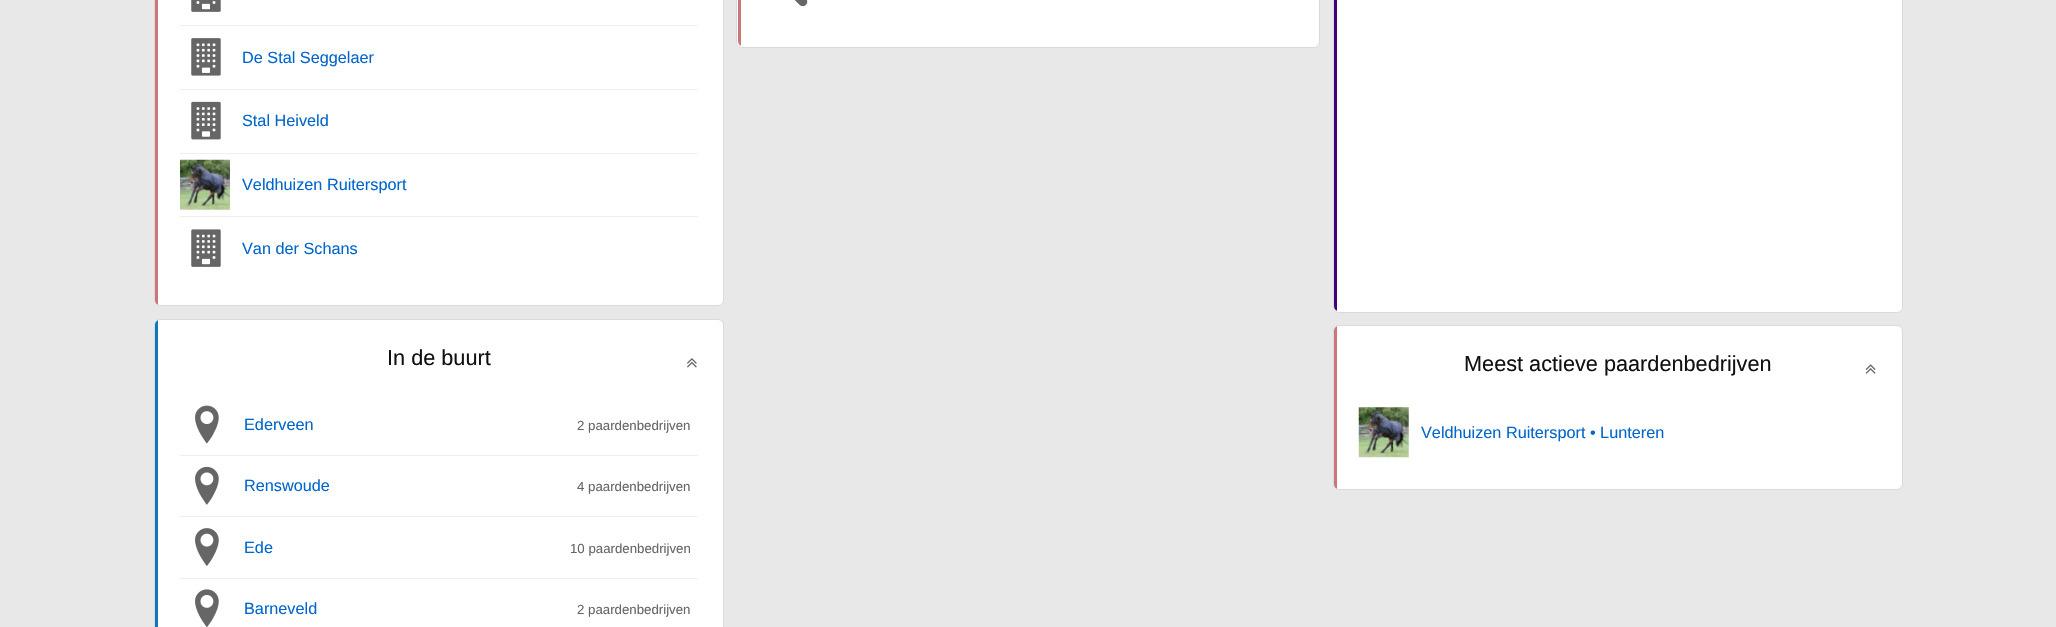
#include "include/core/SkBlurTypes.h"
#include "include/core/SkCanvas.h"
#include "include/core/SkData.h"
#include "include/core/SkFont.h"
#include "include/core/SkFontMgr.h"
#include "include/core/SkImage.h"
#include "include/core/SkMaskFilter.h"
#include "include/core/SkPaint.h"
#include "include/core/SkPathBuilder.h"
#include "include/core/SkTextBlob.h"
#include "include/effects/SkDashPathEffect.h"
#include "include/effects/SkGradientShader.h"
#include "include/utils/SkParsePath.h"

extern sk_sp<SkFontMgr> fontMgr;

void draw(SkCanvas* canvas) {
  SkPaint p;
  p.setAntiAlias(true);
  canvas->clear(SkColorSetRGB(232, 232, 232));
  p.setColor(SK_ColorWHITE);
  canvas->drawRoundRect(SkRect::MakeLTRB(736.5f, -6.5f, 1319.5f, 47.5f), 5.5f, 5.5f, p);
  p.setStyle(SkPaint::kStroke_Style);
  p.setStrokeWidth(1);
  p.setColor(SkColorSetRGB(218, 218, 218));
  canvas->drawRoundRect(SkRect::MakeLTRB(736.5f, -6.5f, 1319.5f, 47.5f), 5.5f, 5.5f, p);
  canvas->save();
  canvas->clipPath(SkPathBuilder().moveTo(743, -371).lineTo(1314, -371).cubicTo(1317, -371, 1319, -369, 1319, -366).lineTo(1319, 41).cubicTo(1319, 44, 1317, 46, 1314, 46).lineTo(743, 46).cubicTo(740, 46, 738, 44, 738, 41).lineTo(738, -366).cubicTo(738, -369, 740, -371, 743, -371).close().detach(), true);
  p.setStyle(SkPaint::kFill_Style);
  p.setColor(SkColorSetRGB(204, 119, 119));
  canvas->drawPath(SkPathBuilder().moveTo(740.5f, -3).lineTo(741, -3).lineTo(741, 46).lineTo(740.5f, 46).cubicTo(739, 46, 738, 45, 738, 43.5f).lineTo(738, -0.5f).cubicTo(738, -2, 739, -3, 740.5f, -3).close().detach(), p);
  canvas->restore();
  canvas->drawImageRect(SkImages::DeferredFromEncodedData(SkData::MakeFromFileName("images/1.png")), SkRect::MakeLTRB(794, 0, 808, 7), SkSamplingOptions());
  p.setColor(SK_ColorWHITE);
  canvas->drawRoundRect(SkRect::MakeLTRB(154.5f, -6.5f, 723.5f, 305.5f), 5.5f, 5.5f, p);
  p.setStyle(SkPaint::kStroke_Style);
  p.setColor(SkColorSetRGB(218, 218, 218));
  canvas->drawRoundRect(SkRect::MakeLTRB(154.5f, -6.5f, 723.5f, 305.5f), 5.5f, 5.5f, p);
  canvas->save();
  canvas->clipPath(SkPathBuilder().moveTo(160, -112).lineTo(718, -112).cubicTo(721, -112, 723, -110, 723, -107).lineTo(723, 300).cubicTo(723, 303, 721, 305, 718, 305).lineTo(160, 305).cubicTo(157, 305, 155, 303, 155, 300).lineTo(155, -107).cubicTo(155, -110, 157, -112, 160, -112).close().detach(), true);
  p.setStyle(SkPaint::kFill_Style);
  p.setColor(SkColorSetRGB(204, 119, 119));
  canvas->drawPath(SkPathBuilder().moveTo(157.5f, -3).lineTo(158, -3).lineTo(158, 305).lineTo(157.5f, 305).cubicTo(156, 305, 155, 304, 155, 302.5f).lineTo(155, -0.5f).cubicTo(155, -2, 156, -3, 157.5f, -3).close().detach(), p);
  canvas->restore();
  p.setColor(SkColorSetRGB(239, 239, 239));
  canvas->drawRect(SkRect::MakeLTRB(180, 25, 698, 26), p);
  canvas->drawImageRect(SkImages::DeferredFromEncodedData(SkData::MakeFromFileName("images/2.png")), SkRect::MakeLTRB(191, 0, 221, 12), SkSamplingOptions());
  canvas->drawRect(SkRect::MakeLTRB(180, 89, 698, 90), p);
  canvas->drawImageRect(SkImages::DeferredFromEncodedData(SkData::MakeFromFileName("images/3.png")), SkRect::MakeLTRB(191, 38, 221, 76), SkSamplingOptions());
  canvas->drawRect(SkRect::MakeLTRB(180, 153, 698, 154), p);
  canvas->drawImageRect(SkImages::DeferredFromEncodedData(SkData::MakeFromFileName("images/4.png")), SkRect::MakeLTRB(191, 101, 221, 140), SkSamplingOptions());
  canvas->drawRect(SkRect::MakeLTRB(180, 216, 698, 217), p);
  canvas->drawImageRect(SkImages::DeferredFromEncodedData(SkData::MakeFromFileName("images/5.png")), SkRect::MakeLTRB(180, 159, 230, 210), SkSamplingOptions());
  canvas->drawImageRect(SkImages::DeferredFromEncodedData(SkData::MakeFromFileName("images/6.png")), SkRect::MakeLTRB(191, 229, 221, 267), SkSamplingOptions());
  p.setColor(SK_ColorWHITE);
  canvas->drawRoundRect(SkRect::MakeLTRB(154.5f, 319.5f, 723.5f, 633.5f), 5.5f, 5.5f, p);
  p.setStyle(SkPaint::kStroke_Style);
  p.setColor(SkColorSetRGB(218, 218, 218));
  canvas->drawRoundRect(SkRect::MakeLTRB(154.5f, 319.5f, 723.5f, 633.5f), 5.5f, 5.5f, p);
  canvas->save();
  canvas->clipPath(SkPathBuilder().moveTo(160, 320).lineTo(718, 320).cubicTo(721, 320, 723, 322, 723, 325).lineTo(723, 720).cubicTo(723, 723, 721, 725, 718, 725).lineTo(160, 725).cubicTo(157, 725, 155, 723, 155, 720).lineTo(155, 325).cubicTo(155, 322, 157, 320, 160, 320).close().detach(), true);
  p.setStyle(SkPaint::kFill_Style);
  p.setColor(SkColorSetRGB(17, 119, 187));
  canvas->drawPath(SkPathBuilder().moveTo(157.5f, 320).lineTo(158, 320).lineTo(158, 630).lineTo(157.5f, 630).cubicTo(156, 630, 155, 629, 155, 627.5f).lineTo(155, 322.5f).cubicTo(155, 321, 156, 320, 157.5f, 320).close().detach(), p);
  canvas->restore();
  canvas->drawImageRect(SkImages::DeferredFromEncodedData(SkData::MakeFromFileName("images/7.png")), SkRect::MakeLTRB(687, 358, 697, 368), SkSamplingOptions());
  p.setColor(SkColorSetRGB(239, 239, 239));
  canvas->drawRect(SkRect::MakeLTRB(180, 455, 698, 456), p);
  canvas->drawImageRect(SkImages::DeferredFromEncodedData(SkData::MakeFromFileName("images/8.png")), SkRect::MakeLTRB(195, 405, 219, 444), SkSamplingOptions());
  canvas->drawRect(SkRect::MakeLTRB(180, 516, 698, 517), p);
  canvas->drawImageRect(SkImages::DeferredFromEncodedData(SkData::MakeFromFileName("images/9.png")), SkRect::MakeLTRB(195, 466, 219, 505), SkSamplingOptions());
  canvas->drawRect(SkRect::MakeLTRB(180, 578, 698, 579), p);
  canvas->drawImageRect(SkImages::DeferredFromEncodedData(SkData::MakeFromFileName("images/10.png")), SkRect::MakeLTRB(195, 528, 219, 566), SkSamplingOptions());
  canvas->drawImageRect(SkImages::DeferredFromEncodedData(SkData::MakeFromFileName("images/11.png")), SkRect::MakeLTRB(195, 589, 219, 627), SkSamplingOptions());
  p.setColor(SK_ColorWHITE);
  canvas->drawRoundRect(SkRect::MakeLTRB(1333.5f, -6.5f, 1902.5f, 312.5f), 5.5f, 5.5f, p);
  p.setStyle(SkPaint::kStroke_Style);
  p.setColor(SkColorSetRGB(218, 218, 218));
  canvas->drawRoundRect(SkRect::MakeLTRB(1333.5f, -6.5f, 1902.5f, 312.5f), 5.5f, 5.5f, p);
  canvas->save();
  canvas->clipPath(SkPathBuilder().moveTo(1339, -464).lineTo(1896, -464).cubicTo(1899, -464, 1901, -462, 1901, -459).lineTo(1901, 306).cubicTo(1901, 309, 1899, 311, 1896, 311).lineTo(1339, 311).cubicTo(1336, 311, 1334, 309, 1334, 306).lineTo(1334, -459).cubicTo(1334, -462, 1336, -464, 1339, -464).close().detach(), true);
  p.setStyle(SkPaint::kFill_Style);
  p.setColor(SkColorSetRGB(68, 0, 119));
  canvas->drawPath(SkPathBuilder().moveTo(1336.5f, -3).lineTo(1337, -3).lineTo(1337, 311).lineTo(1336.5f, 311).cubicTo(1335, 311, 1334, 310, 1334, 308.5f).lineTo(1334, -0.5f).cubicTo(1334, -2, 1335, -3, 1336.5f, -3).close().detach(), p);
  canvas->restore();
  p.setColor(SK_ColorWHITE);
  canvas->drawRoundRect(SkRect::MakeLTRB(1333.5f, 325.5f, 1902.5f, 489.5f), 5.5f, 5.5f, p);
  p.setStyle(SkPaint::kStroke_Style);
  p.setColor(SkColorSetRGB(218, 218, 218));
  canvas->drawRoundRect(SkRect::MakeLTRB(1333.5f, 325.5f, 1902.5f, 489.5f), 5.5f, 5.5f, p);
  canvas->save();
  canvas->clipPath(SkPathBuilder().moveTo(1339, 326).lineTo(1896, 326).cubicTo(1899, 326, 1901, 328, 1901, 331).lineTo(1901, 484).cubicTo(1901, 487, 1899, 489, 1896, 489).lineTo(1339, 489).cubicTo(1336, 489, 1334, 487, 1334, 484).lineTo(1334, 331).cubicTo(1334, 328, 1336, 326, 1339, 326).close().detach(), true);
  p.setStyle(SkPaint::kFill_Style);
  p.setColor(SkColorSetRGB(204, 119, 119));
  canvas->drawPath(SkPathBuilder().moveTo(1336.5f, 326).lineTo(1337, 326).lineTo(1337, 489).lineTo(1336.5f, 489).cubicTo(1335, 489, 1334, 488, 1334, 486.5f).lineTo(1334, 328.5f).cubicTo(1334, 327, 1335, 326, 1336.5f, 326).close().detach(), p);
  canvas->restore();
  canvas->drawImageRect(SkImages::DeferredFromEncodedData(SkData::MakeFromFileName("images/12.png")), SkRect::MakeLTRB(1865, 364, 1876, 374), SkSamplingOptions());
  canvas->drawImageRect(SkImages::DeferredFromEncodedData(SkData::MakeFromFileName("images/13.png")), SkRect::MakeLTRB(1358, 407, 1409, 458), SkSamplingOptions());
  SkFont font1(fontMgr->matchFamilyStyle("Liberation Sans", SkFontStyle::Normal()), 16.25f);
  font1.setSubpixel(true);
  p.setColor(SkColorSetRGB(0, 102, 204));
  canvas->drawString("De Stal Seggelaer", 242, 63, font1, p);
  canvas->drawString("Stal Heiveld", 242, 126, font1, p);
  canvas->drawString("Veldhuizen Ruitersport", 242, 190, font1, p);
  canvas->drawString("Van der Schans", 242, 254, font1, p);
  SkFont font2(fontMgr->matchFamilyStyle("Liberation Sans", SkFontStyle::Normal()), 21.7f);
  font2.setSubpixel(true);
  p.setColor(SkColorSetRGB(17, 17, 17));
  canvas->drawString("In de buurt", 387, 365, font2, p);
  p.setColor(SkColorSetRGB(0, 102, 204));
  canvas->drawString("Ederveen", 244, 430, font1, p);
  SkFont font3(fontMgr->matchFamilyStyle("Liberation Sans", SkFontStyle::Normal()), 13.25f);
  font3.setSubpixel(true);
  p.setColor(SkColorSetRGB(102, 102, 102));
  canvas->drawString("2 paardenbedrijven", 577, 430, font3, p);
  p.setColor(SkColorSetRGB(0, 102, 204));
  canvas->drawString("Renswoude", 244, 491, font1, p);
  p.setColor(SkColorSetRGB(102, 102, 102));
  canvas->drawString("4 paardenbedrijven", 577, 491, font3, p);
  p.setColor(SkColorSetRGB(0, 102, 204));
  canvas->drawString("Ede", 244, 553, font1, p);
  p.setColor(SkColorSetRGB(102, 102, 102));
  canvas->drawString("10 paardenbedrijven", 570, 553, font3, p);
  p.setColor(SkColorSetRGB(0, 102, 204));
  canvas->drawString("Barneveld", 244, 614, font1, p);
  p.setColor(SkColorSetRGB(102, 102, 102));
  canvas->drawString("2 paardenbedrijven", 577, 614, font3, p);
  p.setColor(SkColorSetRGB(17, 17, 17));
  canvas->drawString("Meest actieve paardenbedrijven", 1464, 371, font2, p);
  p.setColor(SkColorSetRGB(0, 102, 204));
  canvas->drawString("Veldhuizen Ruitersport • Lunteren", 1421, 438, font1, p);
}
